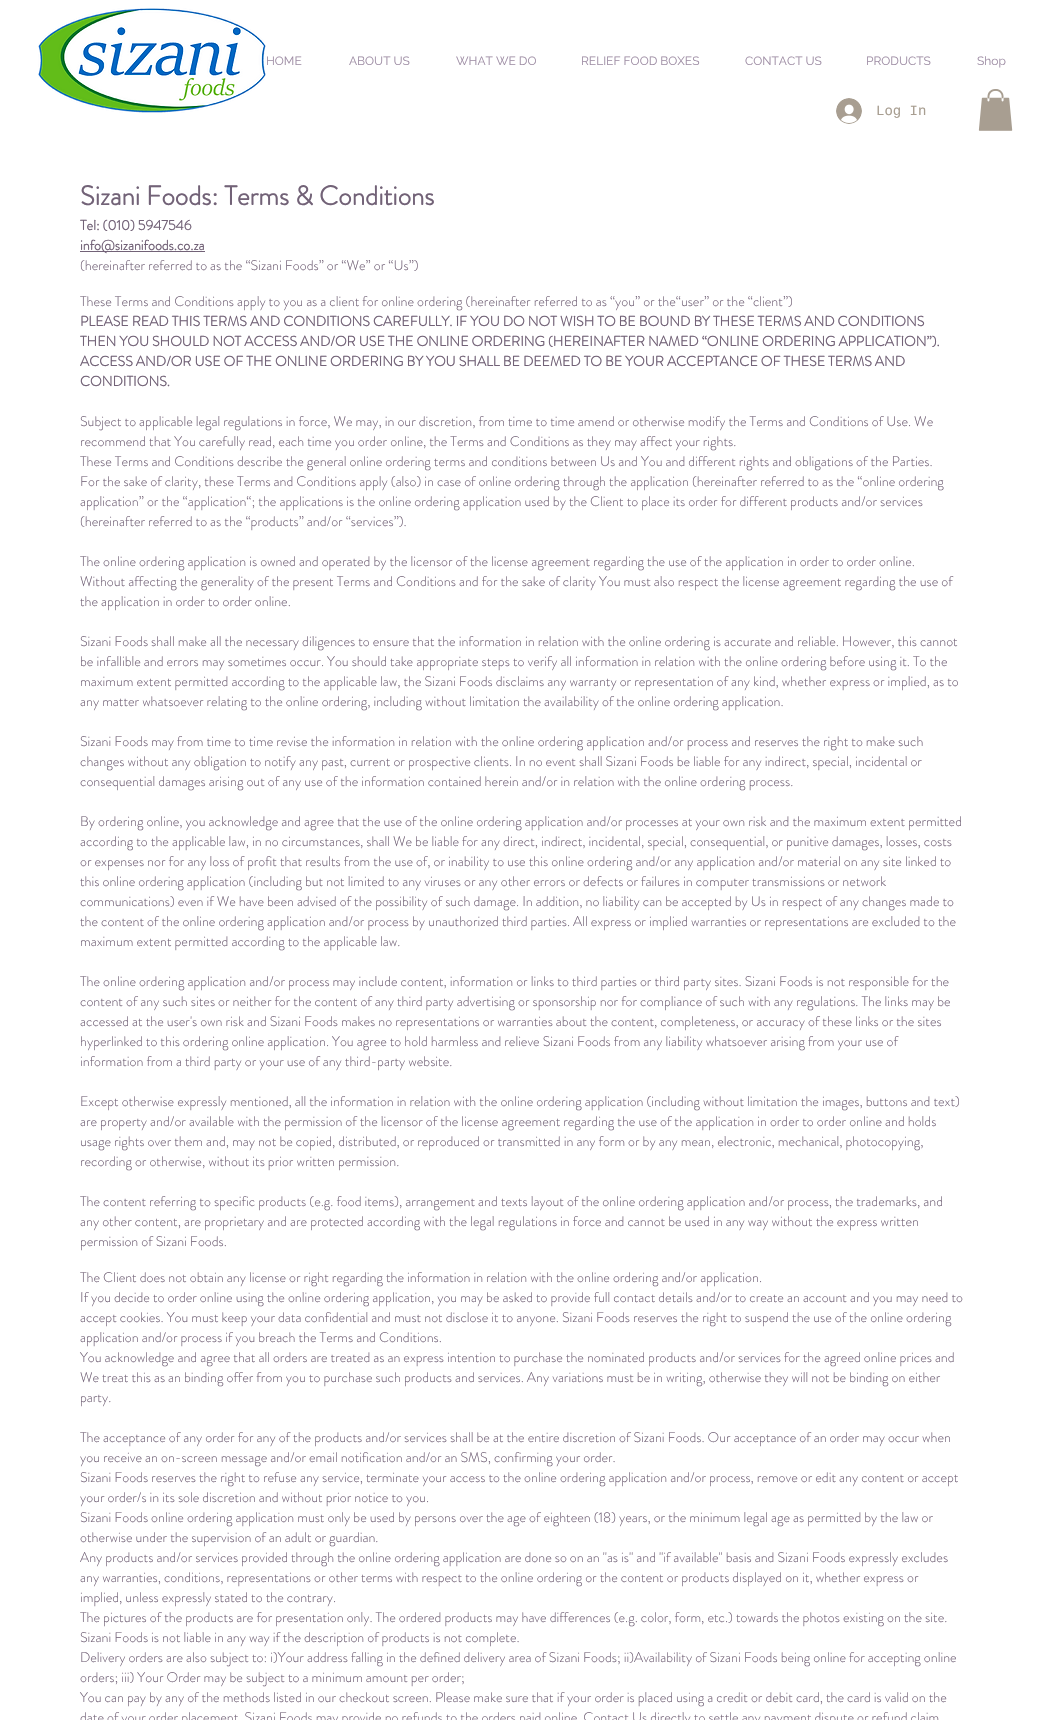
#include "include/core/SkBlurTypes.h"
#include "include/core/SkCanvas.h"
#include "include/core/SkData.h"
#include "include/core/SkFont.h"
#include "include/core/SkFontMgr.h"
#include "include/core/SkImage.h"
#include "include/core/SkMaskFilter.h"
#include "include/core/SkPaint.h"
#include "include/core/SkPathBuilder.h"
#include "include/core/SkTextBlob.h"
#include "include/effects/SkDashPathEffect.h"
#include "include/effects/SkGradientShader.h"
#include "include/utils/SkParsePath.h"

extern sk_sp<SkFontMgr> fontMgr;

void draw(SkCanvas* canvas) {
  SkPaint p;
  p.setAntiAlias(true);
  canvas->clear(SK_ColorWHITE);
  canvas->drawImageRect(SkImages::DeferredFromEncodedData(SkData::MakeFromFileName("images/1.png")), SkRect::MakeLTRB(38, 8, 266, 113), SkSamplingOptions());
  canvas->drawImageRect(SkImages::DeferredFromEncodedData(SkData::MakeFromFileName("images/2.png")), SkRect::MakeLTRB(836, 98, 862, 124), SkSamplingOptions());
  canvas->drawImageRect(SkImages::DeferredFromEncodedData(SkData::MakeFromFileName("images/3.png")), SkRect::MakeLTRB(978, 89, 1013, 131), SkSamplingOptions());
  p.setColor(SkColorSetRGB(114, 98, 119));
  canvas->drawRect(SkRect::MakeLTRB(80, 251, 205, 252), p);
  SkFont font1(fontMgr->matchFamilyStyle("Raleway", SkFontStyle::Normal()), 12);
  font1.setSubpixel(true);
  p.setColor(SkColorSetRGB(160, 143, 166));
  canvas->drawString("HOME", 266, 65, font1, p);
  canvas->drawString("ABOUT US", 349, 65, font1, p);
  canvas->drawString("WHAT WE DO", 456, 65, font1, p);
  canvas->drawString("RELIEF FOOD BOXES", 581, 65, font1, p);
  canvas->drawString("CONTACT US", 745, 65, font1, p);
  canvas->drawString("PRODUCTS", 866, 65, font1, p);
  canvas->drawString("Shop", 977, 65, font1, p);
  SkFont font2(fontMgr->matchFamilyStyle("Liberation Mono", SkFontStyle::Normal()), 14);
  font2.setSubpixel(true);
  p.setColor(SkColorSetRGB(168, 158, 145));
  canvas->drawString("Log In", 876, 115, font2, p);
  SkFont font3(fontMgr->matchFamilyStyle("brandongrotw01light", SkFontStyle::Bold()), 27);
  font3.setSubpixel(true);
  p.setColor(SkColorSetRGB(114, 98, 119));
  canvas->drawString("Sizani Foods: Terms & Conditions", 80, 205, font3, p);
  SkFont font4(fontMgr->matchFamilyStyle("brandongrotw01light", SkFontStyle::Bold()), 14);
  font4.setSubpixel(true);
  canvas->drawString("Tel: (010) 5947546", 80, 230, font4, p);
  canvas->drawString("info@sizanifoods.co.za", 80, 250, font4, p);
  SkFont font5(fontMgr->matchFamilyStyle("brandongrotw01light", SkFontStyle(300, SkFontStyle::kNormal_Width, SkFontStyle::kUpright_Slant)), 14);
  font5.setSubpixel(true);
  canvas->drawString("(hereinafter referred to as the “Sizani Foods” or “We” or “Us”)", 80, 270, font5, p);
  canvas->drawString("These Terms and Conditions apply to you as a client for online ordering (hereinafter referred to as “you” or the“user” or the “client”)", 80, 306, font5, p);
  canvas->drawString("PLEASE READ THIS TERMS AND CONDITIONS CAREFULLY. IF YOU DO NOT WISH TO BE BOUND BY THESE TERMS AND CONDITIONS", 80, 326, font4, p);
  canvas->drawString("THEN YOU SHOULD NOT ACCESS AND/OR USE THE ONLINE ORDERING (HEREINAFTER NAMED “ONLINE ORDERING APPLICATION”).", 80, 346, font4, p);
  canvas->drawString("ACCESS AND/OR USE OF THE ONLINE ORDERING BY YOU SHALL BE DEEMED TO BE YOUR ACCEPTANCE OF THESE TERMS AND", 80, 366, font4, p);
  canvas->drawString("CONDITIONS.", 80, 386, font4, p);
  canvas->drawString("Subject to applicable legal regulations in force, We may, in our discretion, from time to time amend or otherwise modify the Terms and Conditions of Use. We", 80, 426, font5, p);
  canvas->drawString("recommend that You carefully read, each time you order online, the Terms and Conditions as they may affect your rights.", 80, 446, font5, p);
  canvas->drawString("These Terms and Conditions describe the general online ordering terms and conditions between Us and You and different rights and obligations of the Parties.", 80, 466, font5, p);
  canvas->drawString("For the sake of clarity, these Terms and Conditions apply (also) in case of online ordering through the application (hereinafter referred to as the “online ordering", 80, 486, font5, p);
  canvas->drawString("application” or the “application“; the applications is the online ordering application used by the Client to place its order for different products and/or services", 80, 506, font5, p);
  canvas->drawString("(hereinafter referred to as the “products” and/or “services”).", 80, 526, font5, p);
  canvas->drawString("The online ordering application is owned and operated by the licensor of the license agreement regarding the use of the application in order to order online.", 80, 566, font5, p);
  canvas->drawString("Without affecting the generality of the present Terms and Conditions and for the sake of clarity You must also respect the license agreement regarding the use of", 80, 586, font5, p);
  canvas->drawString("the application in order to order online.", 80, 606, font5, p);
  canvas->drawString("Sizani Foods shall make all the necessary diligences to ensure that the information in relation with the online ordering is accurate and reliable. However, this cannot", 80, 646, font5, p);
  canvas->drawString("be infallible and errors may sometimes occur. You should take appropriate steps to verify all information in relation with the online ordering before using it. To the", 80, 666, font5, p);
  canvas->drawString("maximum extent permitted according to the applicable law, the Sizani Foods disclaims any warranty or representation of any kind, whether express or implied, as to", 80, 686, font5, p);
  canvas->drawString("any matter whatsoever relating to the online ordering, including without limitation the availability of the online ordering application.", 80, 706, font5, p);
  canvas->drawString("Sizani Foods may from time to time revise the information in relation with the online ordering application and/or process and reserves the right to make such", 80, 746, font5, p);
  canvas->drawString("changes without any obligation to notify any past, current or prospective clients. In no event shall Sizani Foods be liable for any indirect, special, incidental or", 80, 766, font5, p);
  canvas->drawString("consequential damages arising out of any use of the information contained herein and/or in relation with the online ordering process.", 80, 786, font5, p);
  canvas->drawString("By ordering online, you acknowledge and agree that the use of the online ordering application and/or processes at your own risk and the maximum extent permitted", 80, 826, font5, p);
  canvas->drawString("according to the applicable law, in no circumstances, shall We be liable for any direct, indirect, incidental, special, consequential, or punitive damages, losses, costs", 80, 846, font5, p);
  canvas->drawString("or expenses nor for any loss of profit that results from the use of, or inability to use this online ordering and/or any application and/or material on any site linked to", 80, 866, font5, p);
  canvas->drawString("this online ordering application (including but not limited to any viruses or any other errors or defects or failures in computer transmissions or network", 80, 886, font5, p);
  canvas->drawString("communications) even if We have been advised of the possibility of such damage. In addition, no liability can be accepted by Us in respect of any changes made to", 80, 906, font5, p);
  canvas->drawString("the content of the online ordering application and/or process by unauthorized third parties. All express or implied warranties or representations are excluded to the", 80, 926, font5, p);
  canvas->drawString("maximum extent permitted according to the applicable law.", 80, 946, font5, p);
  canvas->drawString("The online ordering application and/or process may include content, information or links to third parties or third party sites. Sizani Foods is not responsible for the", 80, 986, font5, p);
  canvas->drawString("content of any such sites or neither for the content of any third party advertising or sponsorship nor for compliance of such with any regulations. The links may be", 80, 1006, font5, p);
  canvas->drawString("accessed at the user's own risk and Sizani Foods makes no representations or warranties about the content, completeness, or accuracy of these links or the sites", 80, 1026, font5, p);
  canvas->drawString("hyperlinked to this ordering online application. You agree to hold harmless and relieve Sizani Foods from any liability whatsoever arising from your use of", 80, 1046, font5, p);
  canvas->drawString("information from a third party or your use of any third-party website.", 80, 1066, font5, p);
  canvas->drawString("Except otherwise expressly mentioned, all the information in relation with the online ordering application (including without limitation the images, buttons and text)", 80, 1106, font5, p);
  canvas->drawString("are property and/or available with the permission of the licensor of the license agreement regarding the use of the application in order to order online and holds", 80, 1126, font5, p);
  canvas->drawString("usage rights over them and, may not be copied, distributed, or reproduced or transmitted in any form or by any mean, electronic, mechanical, photocopying,", 80, 1146, font5, p);
  canvas->drawString("recording or otherwise, without its prior written permission.", 80, 1166, font5, p);
  canvas->drawString("The content referring to specific products (e.g. food items), arrangement and texts layout of the online ordering application and/or process, the trademarks, and", 80, 1206, font5, p);
  canvas->drawString("any other content, are proprietary and are protected according with the legal regulations in force and cannot be used in any way without the express written", 80, 1226, font5, p);
  canvas->drawString("permission of Sizani Foods.", 80, 1246, font5, p);
  canvas->drawString("The Client does not obtain any license or right regarding the information in relation with the online ordering and/or application.", 80, 1282, font5, p);
  canvas->drawString("If you decide to order online using the online ordering application, you may be asked to provide full contact details and/or to create an account and you may need to", 80, 1302, font5, p);
  canvas->drawString("accept cookies. You must keep your data confidential and must not disclose it to anyone. Sizani Foods reserves the right to suspend the use of the online ordering", 80, 1322, font5, p);
  canvas->drawString("application and/or process if you breach the Terms and Conditions.", 80, 1342, font5, p);
  canvas->drawString("You acknowledge and agree that all orders are treated as an express intention to purchase the nominated products and/or services for the agreed online prices and", 80, 1362, font5, p);
  canvas->drawString("We treat this as an binding offer from you to purchase such products and services. Any variations must be in writing, otherwise they will not be binding on either", 80, 1382, font5, p);
  canvas->drawString("party.", 80, 1402, font5, p);
  canvas->drawString("The acceptance of any order for any of the products and/or services shall be at the entire discretion of Sizani Foods. Our acceptance of an order may occur when", 80, 1442, font5, p);
  canvas->drawString("you receive an on-screen message and/or email notification and/or an SMS, confirming your order.", 80, 1462, font5, p);
  canvas->drawString("Sizani Foods reserves the right to refuse any service, terminate your access to the online ordering application and/or process, remove or edit any content or accept", 80, 1482, font5, p);
  canvas->drawString("your order/s in its sole discretion and without prior notice to you.", 80, 1502, font5, p);
  canvas->drawString("Sizani Foods online ordering application must only be used by persons over the age of eighteen (18) years, or the minimum legal age as permitted by the law or", 80, 1522, font5, p);
  canvas->drawString("otherwise under the supervision of an adult or guardian.", 80, 1542, font5, p);
  canvas->drawString("Any products and/or services provided through the online ordering application are done so on an \"as is\" and \"if available\" basis and Sizani Foods expressly excludes", 80, 1562, font5, p);
  canvas->drawString("any warranties, conditions, representations or other terms with respect to the online ordering or the content or products displayed on it, whether express or", 80, 1582, font5, p);
  canvas->drawString("implied, unless expressly stated to the contrary.", 80, 1602, font5, p);
  canvas->drawString("The pictures of the products are for presentation only. The ordered products may have differences (e.g. color, form, etc.) towards the photos existing on the site.", 80, 1622, font5, p);
  canvas->drawString("Sizani Foods is not liable in any way if the description of products is not complete.", 80, 1642, font5, p);
  canvas->drawString("Delivery orders are also subject to: i)Your address falling in the defined delivery area of Sizani Foods; ii)Availability of Sizani Foods being online for accepting online", 80, 1662, font5, p);
  canvas->drawString("orders; iii) Your Order may be subject to a minimum amount per order;", 80, 1682, font5, p);
  canvas->drawString("You can pay by any of the methods listed in our checkout screen. Please make sure that if your order is placed using a credit or debit card, the card is valid on the", 80, 1702, font5, p);
  canvas->drawString("date of your order placement. Sizani Foods may provide no refunds to the orders paid online. Contact Us directly to settle any payment dispute or refund claim", 80, 1722, font5, p);
}
